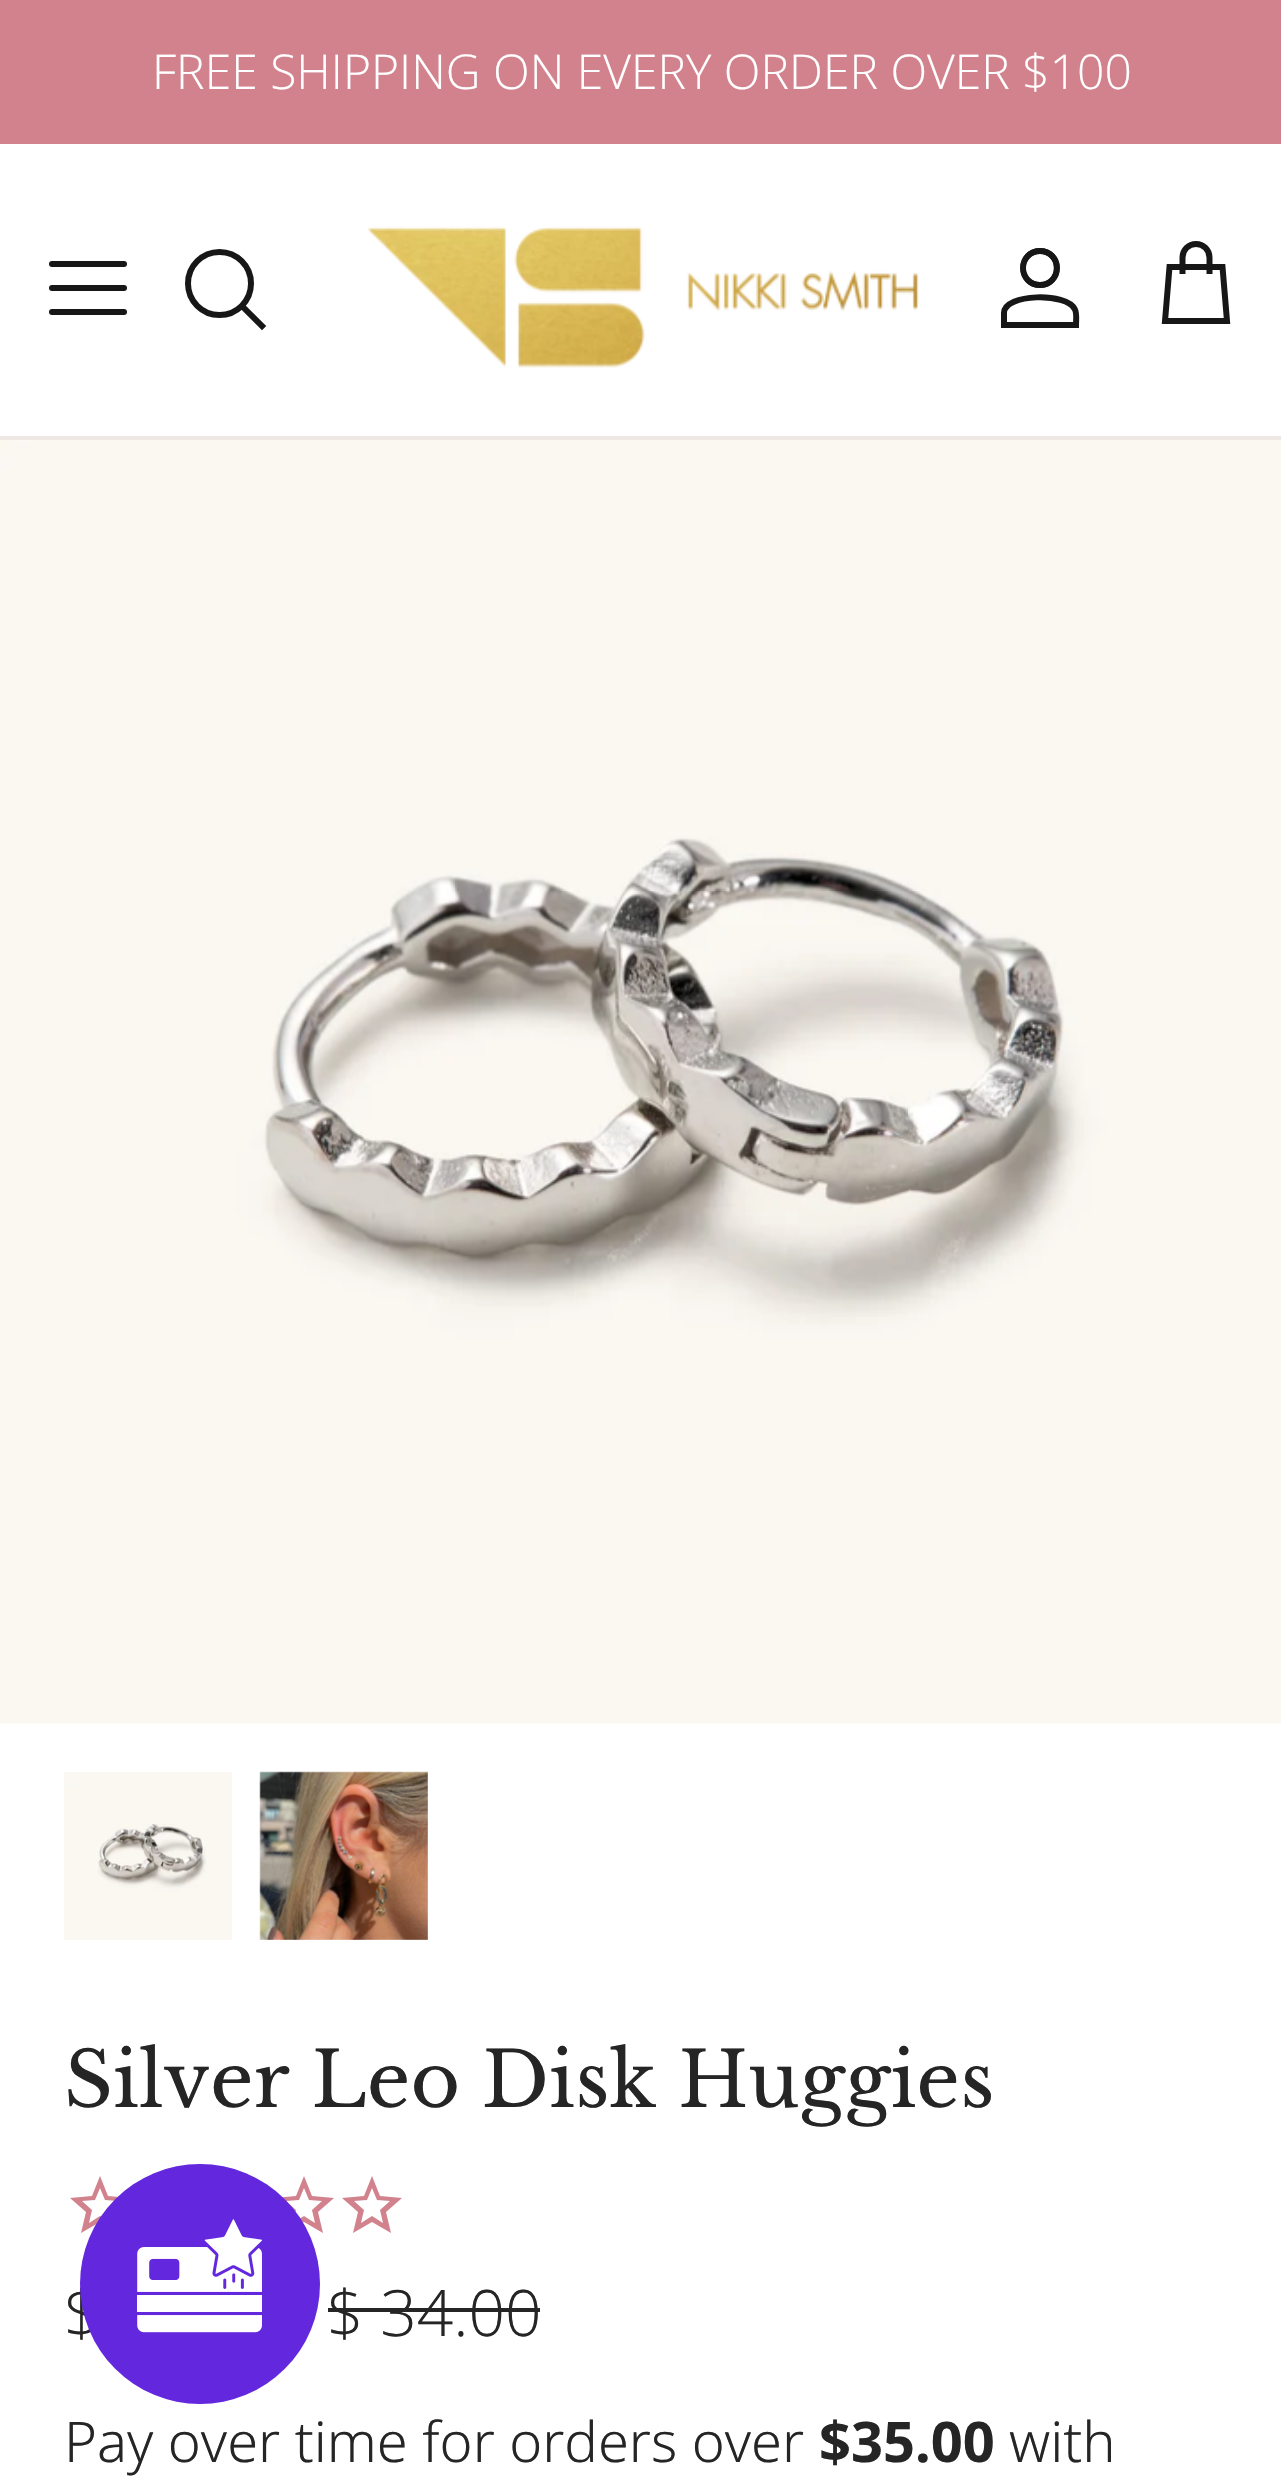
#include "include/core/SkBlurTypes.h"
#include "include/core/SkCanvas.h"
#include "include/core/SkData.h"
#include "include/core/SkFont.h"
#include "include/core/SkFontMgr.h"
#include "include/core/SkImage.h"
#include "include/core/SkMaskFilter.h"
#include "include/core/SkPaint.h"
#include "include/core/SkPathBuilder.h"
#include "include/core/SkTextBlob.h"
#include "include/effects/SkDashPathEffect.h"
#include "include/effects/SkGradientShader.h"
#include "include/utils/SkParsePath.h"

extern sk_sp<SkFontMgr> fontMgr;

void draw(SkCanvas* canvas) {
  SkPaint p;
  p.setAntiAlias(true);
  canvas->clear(SK_ColorWHITE);
  p.setColor(SkColorSetRGB(210, 130, 141));
  canvas->drawRect(SkRect::MakeLTRB(0, 0, 1281, 144), p);
  p.setColor(SkColorSetRGB(239, 231, 228));
  canvas->drawRect(SkRect::MakeLTRB(0, 436, 1281, 440), p);
  p.setStyle(SkPaint::kStroke_Style);
  p.setStrokeWidth(6);
  p.setStrokeCap(SkPaint::kRound_Cap);
  p.setStrokeJoin(SkPaint::kRound_Join);
  p.setColor(SkColorSetRGB(23, 23, 23));
  canvas->drawPath(SkPathBuilder().moveTo(52, 264).lineTo(124, 264).detach(), p);
  canvas->drawPath(SkPathBuilder().moveTo(52, 288).lineTo(124, 288).detach(), p);
  canvas->drawPath(SkPathBuilder().moveTo(52, 312).lineTo(124, 312).detach(), p);
  p.setStrokeCap(SkPaint::kButt_Cap);
  p.setStrokeJoin(SkPaint::kMiter_Join);
  canvas->drawCircle(219.5f, 283.5f, 31.5f, p);
  p.setStrokeCap(SkPaint::kSquare_Cap);
  canvas->drawPath(SkPathBuilder().moveTo(244, 308).lineTo(262, 326).detach(), p);
  canvas->drawImageRect(SkImages::DeferredFromEncodedData(SkData::MakeFromFileName("images/1.png")), SkRect::MakeLTRB(368, 226, 919, 368), SkSamplingOptions());
  p.setStyle(SkPaint::kFill_Style);
  canvas->drawPath(SkPathBuilder(SkPathFillType::kEvenOdd).moveTo(1040, 248).cubicTo(1066, 248, 1066, 288, 1040, 288).cubicTo(1014, 288, 1014, 248, 1040, 248).close().moveTo(1040, 254).cubicTo(1021, 254, 1021, 282, 1040, 282).cubicTo(1058, 283, 1059, 254, 1040, 254).close().detach(), p);
  p.setStyle(SkPaint::kStroke_Style);
  p.setStrokeCap(SkPaint::kButt_Cap);
  canvas->drawCircle(1040, 268, 17, p);
  canvas->drawPath(SkPathBuilder().moveTo(1004, 313).cubicTo(1004, 293.5f, 1067, 292, 1075, 309.5f).cubicTo(1077, 313.5f, 1076, 320.5f, 1076, 325).lineTo(1004, 325).close().detach(), p);
  canvas->drawPath(SkPathBuilder().moveTo(1209.5f, 274).lineTo(1209.5f, 257.5f).cubicTo(1209.5f, 250, 1203.5f, 244, 1196, 244).cubicTo(1188.5f, 244, 1182.5f, 250, 1182.5f, 257.5f).lineTo(1182.5f, 274).detach(), p);
  canvas->drawPath(SkPathBuilder().moveTo(1169.5f, 267).lineTo(1222.5f, 267).lineTo(1227, 321).lineTo(1165, 321).close().detach(), p);
  canvas->drawImageRect(SkImages::DeferredFromEncodedData(SkData::MakeFromFileName("images/2.png")), SkRect::MakeLTRB(0, 440, 1281, 1724), SkSamplingOptions());
  canvas->drawImageRect(SkImages::DeferredFromEncodedData(SkData::MakeFromFileName("images/3.png")), SkRect::MakeLTRB(64, 1772, 232, 1928), SkSamplingOptions());
  p.setStyle(SkPaint::kFill_Style);
  p.setColor(SkColorSetRGB(251, 248, 242));
  canvas->drawRect(SkRect::MakeLTRB(64, 1928, 232, 1940), p);
  canvas->drawImageRect(SkImages::DeferredFromEncodedData(SkData::MakeFromFileName("images/4.png")), SkRect::MakeLTRB(259, 1771, 428, 1940), SkSamplingOptions());
  p.setColor(SkColorSetRGB(210, 130, 141));
  canvas->drawPath(SkPathBuilder().moveTo(100, 2216).lineTo(111, 2223).lineTo(108, 2210).lineTo(118, 2201).lineTo(105, 2200).lineTo(100, 2188).lineTo(95, 2200).lineTo(82, 2201).lineTo(92, 2210).lineTo(89, 2223).close().moveTo(130, 2198).lineTo(114, 2212).lineTo(119, 2233).lineTo(100, 2222).lineTo(81, 2233).lineTo(86, 2212).lineTo(70, 2198).lineTo(92, 2196).lineTo(100, 2176).lineTo(108, 2196).close().detach(), p);
  canvas->drawPath(SkPathBuilder().moveTo(304, 2216).lineTo(315, 2223).lineTo(312, 2210).lineTo(322, 2201).lineTo(309, 2200).lineTo(304, 2188).lineTo(299, 2200).lineTo(286, 2201).lineTo(296, 2210).lineTo(293, 2223).close().moveTo(334, 2198).lineTo(318, 2212).lineTo(323, 2233).lineTo(304, 2222).lineTo(285, 2233).lineTo(290, 2212).lineTo(274, 2198).lineTo(296, 2196).lineTo(304, 2176).lineTo(312, 2196).close().detach(), p);
  canvas->drawPath(SkPathBuilder().moveTo(372, 2216).lineTo(383, 2223).lineTo(380, 2210).lineTo(390, 2201).lineTo(377, 2200).lineTo(372, 2188).lineTo(367, 2200).lineTo(354, 2201).lineTo(364, 2210).lineTo(361, 2223).close().moveTo(402, 2198).lineTo(386, 2212).lineTo(391, 2233).lineTo(372, 2222).lineTo(353, 2233).lineTo(358, 2212).lineTo(342, 2198).lineTo(364, 2196).lineTo(372, 2176).lineTo(380, 2196).close().detach(), p);
  p.setColor(SkColorSetRGB(38, 37, 38));
  canvas->drawRect(SkRect::MakeLTRB(328, 2308, 540, 2312), p);
  SkFont font1(fontMgr->matchFamilyStyle("Open Sans", SkFontStyle(300, SkFontStyle::kNormal_Width, SkFontStyle::kUpright_Slant)), 48);
  font1.setSubpixel(true);
  p.setColor(SK_ColorWHITE);
  canvas->drawString("FREE SHIPPING ON EVERY ORDER OVER $100", 152, 89, font1, p);
  SkFont font2(fontMgr->matchFamilyStyle("Libre Baskerville", SkFontStyle::Normal()), 76);
  font2.setSubpixel(true);
  p.setColor(SkColorSetRGB(38, 37, 38));
  canvas->drawString("Silver Leo Disk Huggies", 64, 2107, font2, p);
  SkFont font3(fontMgr->matchFamilyStyle("Open Sans", SkFontStyle(300, SkFontStyle::kNormal_Width, SkFontStyle::kUpright_Slant)), 64);
  font3.setSubpixel(true);
  canvas->drawString("$", 64, 2336, font3, p);
  canvas->drawString("$ 34.00", 327, 2336, font3, p);
  SkFont font4(fontMgr->matchFamilyStyle("Noto Sans", SkFontStyle(300, SkFontStyle::kNormal_Width, SkFontStyle::kUpright_Slant)), 56);
  font4.setSubpixel(true);
  canvas->drawString("Pay over time for orders over", 64, 2462, font4, p);
  SkFont font5(fontMgr->matchFamilyStyle("Noto Sans", SkFontStyle::Bold()), 56);
  font5.setSubpixel(true);
  canvas->drawString("$35.00", 819, 2462, font5, p);
  canvas->drawString("with", 1009, 2462, font4, p);
  p.setColor(SkColorSetRGB(99, 39, 222));
  canvas->drawCircle(200, 2284, 120, p);
  canvas->drawImageRect(SkImages::DeferredFromEncodedData(SkData::MakeFromFileName("images/5.png")), SkRect::MakeLTRB(137, 2219, 262, 2333), SkSamplingOptions());
}
